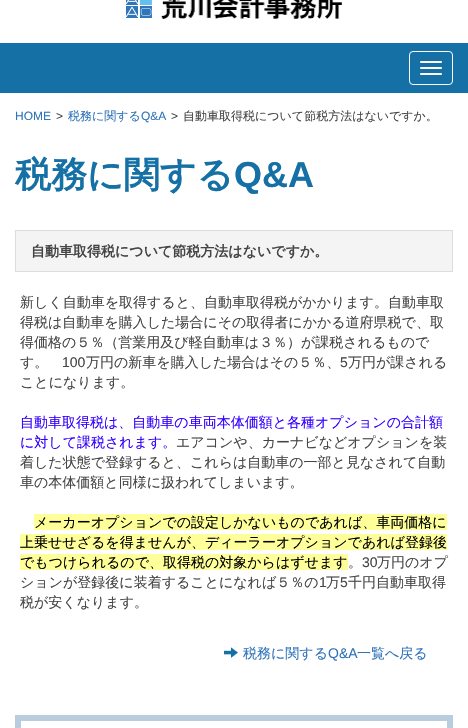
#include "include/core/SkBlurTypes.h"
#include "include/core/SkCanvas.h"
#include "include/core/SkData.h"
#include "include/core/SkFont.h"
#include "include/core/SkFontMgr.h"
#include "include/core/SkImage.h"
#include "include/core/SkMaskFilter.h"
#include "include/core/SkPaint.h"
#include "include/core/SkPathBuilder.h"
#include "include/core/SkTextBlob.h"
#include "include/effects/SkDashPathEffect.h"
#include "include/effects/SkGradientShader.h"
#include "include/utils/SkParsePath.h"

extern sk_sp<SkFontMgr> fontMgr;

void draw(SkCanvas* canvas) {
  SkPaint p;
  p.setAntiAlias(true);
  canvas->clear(SK_ColorWHITE);
  canvas->drawImageRect(SkImages::DeferredFromEncodedData(SkData::MakeFromFileName("images/1.png")), SkRect::MakeLTRB(126, 0, 342, 19), SkSamplingOptions());
  p.setColor(SkColorSetRGB(21, 112, 166));
  canvas->drawRect(SkRect::MakeLTRB(0, 43, 468, 93), p);
  p.setStyle(SkPaint::kStroke_Style);
  p.setStrokeWidth(1);
  p.setColor(SK_ColorWHITE);
  canvas->drawRoundRect(SkRect::MakeLTRB(409.5f, 51.5f, 452.5f, 84.5f), 3.5f, 3.5f, p);
  p.setStyle(SkPaint::kFill_Style);
  canvas->drawRoundRect(SkRect::MakeLTRB(420, 61, 442, 63), 1, 1, p);
  canvas->drawRoundRect(SkRect::MakeLTRB(420, 67, 442, 69), 1, 1, p);
  canvas->drawRoundRect(SkRect::MakeLTRB(420, 73, 442, 75), 1, 1, p);
  p.setColor(SkColorSetRGB(244, 244, 244));
  canvas->drawRect(SkRect::MakeLTRB(15.5f, 230.5f, 452.5f, 271.5f), p);
  p.setStyle(SkPaint::kStroke_Style);
  p.setColor(SkColorSetRGB(221, 221, 221));
  canvas->drawRect(SkRect::MakeLTRB(15.5f, 230.5f, 452.5f, 271.5f), p);
  p.setStyle(SkPaint::kFill_Style);
  p.setColor(SkColorSetRGB(255, 255, 153));
  canvas->drawRect(SkRect::MakeLTRB(34, 514, 447, 530), p);
  canvas->drawRect(SkRect::MakeLTRB(20, 534, 447, 550), p);
  canvas->drawRect(SkRect::MakeLTRB(20, 554, 348, 570), p);
  canvas->drawImageRect(SkImages::DeferredFromEncodedData(SkData::MakeFromFileName("images/2.png")), SkRect::MakeLTRB(224, 647, 238, 658), SkSamplingOptions());
  p.setStyle(SkPaint::kStroke_Style);
  p.setStrokeWidth(6);
  p.setColor(SkColorSetRGB(186, 205, 222));
  canvas->drawRect(SkRect::MakeLTRB(18, 718, 450, 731), p);
  SkFont font1(fontMgr->matchFamilyStyle("Liberation Sans", SkFontStyle::Normal()), 12);
  font1.setSubpixel(true);
  p.setStyle(SkPaint::kFill_Style);
  p.setColor(SkColorSetRGB(48, 116, 185));
  canvas->drawString("HOME", 15, 120, font1, p);
  p.setColor(SkColorSetRGB(69, 69, 69));
  canvas->drawString(">", 56, 120, font1, p);
  SkFont font2(fontMgr->matchFamilyStyle("WenQuanYi Zen Hei", SkFontStyle(500, SkFontStyle::kNormal_Width, SkFontStyle::kUpright_Slant)), 12);
  font2.setSubpixel(true);
  p.setColor(SkColorSetRGB(48, 116, 185));
  canvas->drawString("税務に関する", 68, 120, font2, p);
  canvas->drawString("Q&A", 141, 120, font1, p);
  p.setColor(SkColorSetRGB(69, 69, 69));
  canvas->drawString(">", 171, 120, font1, p);
  canvas->drawString("自動車取得税について節税方法はないですか。", 183, 120, font2, p);
  SkFont font3(fontMgr->matchFamilyStyle("WenQuanYi Zen Hei", SkFontStyle::Bold()), 36);
  font3.setSubpixel(true);
  p.setColor(SkColorSetRGB(21, 112, 166));
  canvas->drawString("税務に関する", 15, 187, font3, p);
  SkFont font4(fontMgr->matchFamilyStyle("Liberation Sans", SkFontStyle::Bold()), 36);
  font4.setSubpixel(true);
  canvas->drawString("Q&A", 234, 187, font4, p);
  SkFont font5(fontMgr->matchFamilyStyle("WenQuanYi Zen Hei", SkFontStyle::Bold()), 14);
  font5.setSubpixel(true);
  p.setColor(SkColorSetRGB(69, 69, 69));
  canvas->drawString("自動車取得税について節税方法はないですか。", 31, 256, font5, p);
  SkFont font6(fontMgr->matchFamilyStyle("WenQuanYi Zen Hei", SkFontStyle(500, SkFontStyle::kNormal_Width, SkFontStyle::kUpright_Slant)), 14);
  font6.setSubpixel(true);
  canvas->drawString("新しく自動車を取得すると、自動車取得税がかかります。自動車取", 20, 307, font6, p);
  canvas->drawString("得税は自動車を購入した場合にその取得者にかかる道府県税で、取", 20, 327, font6, p);
  canvas->drawString("得価格の５％（営業用及び軽自動車は３％）が課税されるもので", 20, 347, font6, p);
  canvas->drawString("す。", 20, 367, font6, p);
  SkFont font7(fontMgr->matchFamilyStyle("Liberation Sans", SkFontStyle::Normal()), 14);
  font7.setSubpixel(true);
  canvas->drawString("100", 62, 367, font7, p);
  canvas->drawString("万円の新車を購入した場合はその５％、", 86, 367, font6, p);
  canvas->drawString("5", 340, 367, font7, p);
  canvas->drawString("万円が課される", 348, 367, font6, p);
  canvas->drawString("ことになります。", 20, 387, font6, p);
  p.setColor(SkColorSetRGB(51, 0, 255));
  canvas->drawString("自動車取得税は、自動車の車両本体価額と各種オプションの合計額", 20, 427, font6, p);
  canvas->drawString("に対して課税されます。", 20, 447, font6, p);
  p.setColor(SkColorSetRGB(69, 69, 69));
  canvas->drawString("エアコンや、カーナビなどオプションを装", 176, 447, font6, p);
  canvas->drawString("着した状態で登録すると、これらは自動車の一部と見なされて自動", 20, 467, font6, p);
  canvas->drawString("車の本体価額と同様に扱われてしまいます。", 20, 487, font6, p);
  p.setColor(SK_ColorBLACK);
  canvas->drawString("メーカーオプションでの設定しかないものであれば、車両価格に", 34, 527, font6, p);
  canvas->drawString("上乗せせざるを得ませんが、ディーラーオプションであれば登録後", 20, 547, font6, p);
  canvas->drawString("でもつけられるので、取得税の対象からはずせます", 20, 567, font6, p);
  p.setColor(SkColorSetRGB(69, 69, 69));
  canvas->drawString("。", 348, 567, font6, p);
  canvas->drawString("30", 362, 567, font7, p);
  canvas->drawString("万円のオプ", 377, 567, font6, p);
  canvas->drawString("ションが登録後に装着することになれば５％の", 20, 587, font6, p);
  canvas->drawString("1", 319, 587, font7, p);
  canvas->drawString("万", 326, 587, font6, p);
  canvas->drawString("5", 340, 587, font7, p);
  canvas->drawString("千円自動車取得", 348, 587, font6, p);
  canvas->drawString("税が安くなります。", 20, 607, font6, p);
  p.setColor(SkColorSetRGB(48, 116, 185));
  canvas->drawString("税務に関する", 243, 658, font6, p);
  canvas->drawString("Q&A", 328, 658, font7, p);
  canvas->drawString("一覧へ戻る", 357, 658, font6, p);
}
